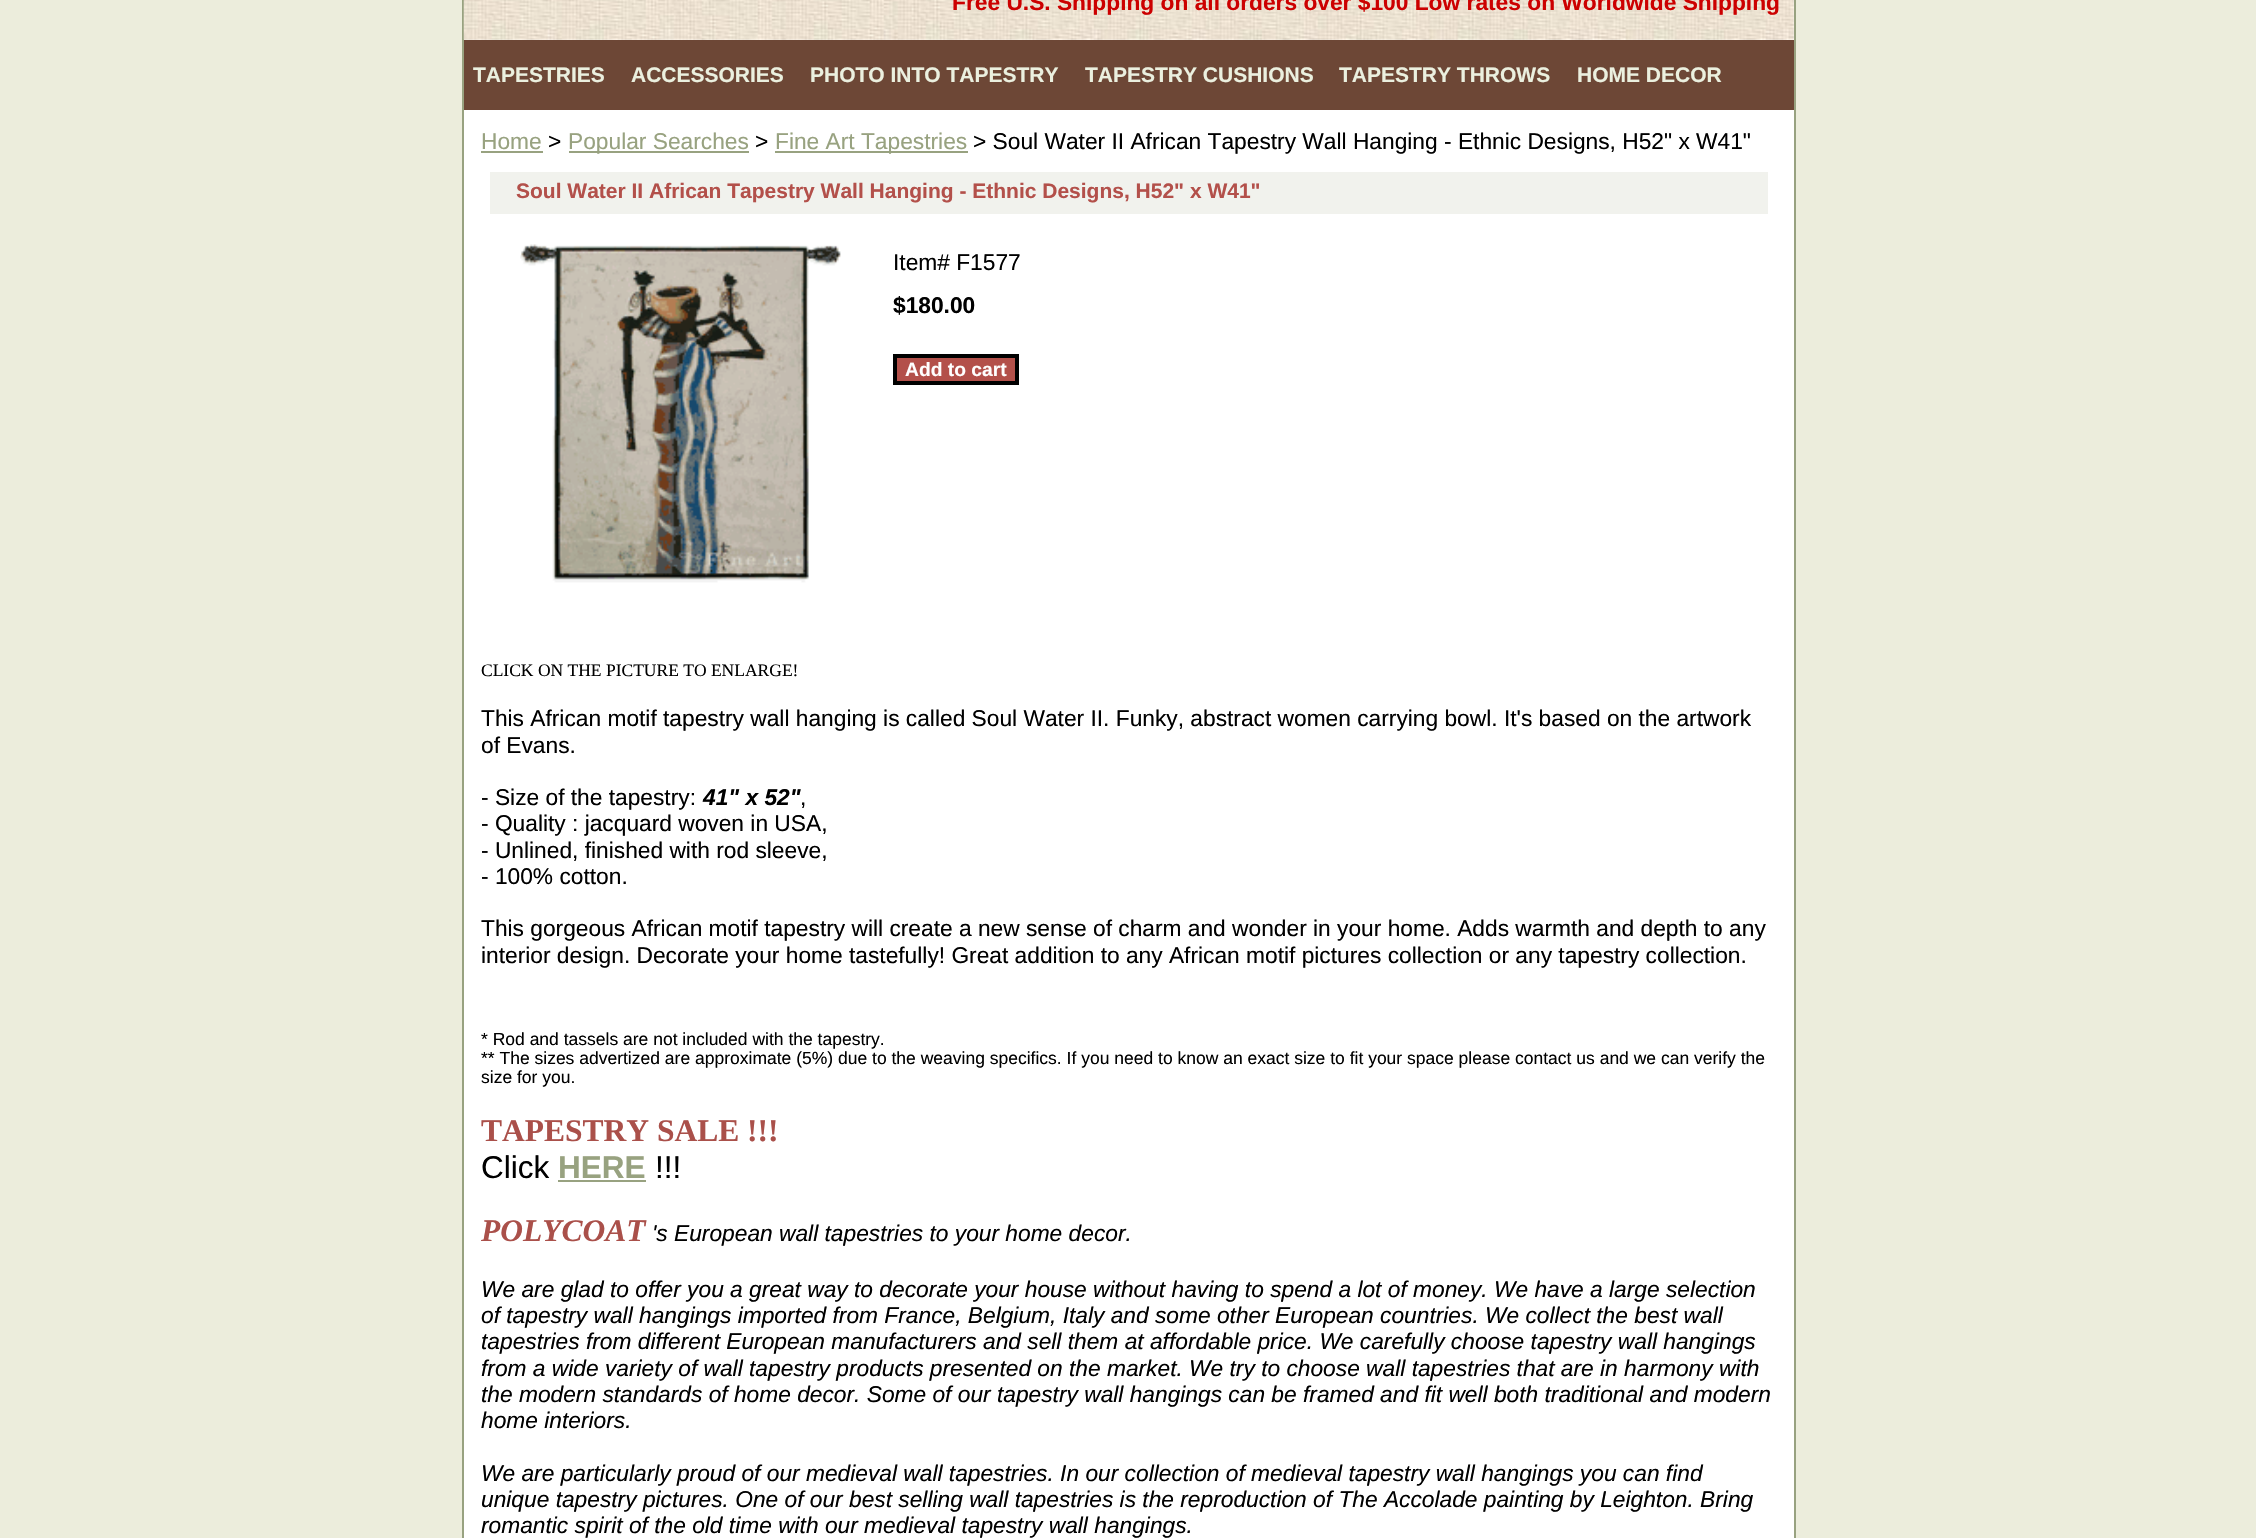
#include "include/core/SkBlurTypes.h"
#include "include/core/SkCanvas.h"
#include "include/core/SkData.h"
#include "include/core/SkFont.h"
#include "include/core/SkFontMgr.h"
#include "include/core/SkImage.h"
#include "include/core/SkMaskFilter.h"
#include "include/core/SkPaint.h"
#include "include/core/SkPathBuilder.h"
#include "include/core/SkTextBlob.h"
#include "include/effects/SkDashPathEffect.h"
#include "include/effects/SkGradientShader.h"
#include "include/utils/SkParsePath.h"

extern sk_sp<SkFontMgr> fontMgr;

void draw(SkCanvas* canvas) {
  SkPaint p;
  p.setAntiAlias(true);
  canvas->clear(SkColorSetRGB(236, 237, 220));
  p.setColor(SK_ColorWHITE);
  canvas->drawRect(SkRect::MakeLTRB(463, -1, 1795, 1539), p);
  p.setStyle(SkPaint::kStroke_Style);
  p.setStrokeWidth(2);
  p.setColor(SkColorSetRGB(152, 162, 128));
  canvas->drawRect(SkRect::MakeLTRB(463, -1, 1795, 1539), p);
  canvas->drawImageRect(SkImages::DeferredFromEncodedData(SkData::MakeFromFileName("images/1.png")), SkRect::MakeLTRB(463, 0, 1794, 40), SkSamplingOptions());
  p.setStyle(SkPaint::kFill_Style);
  p.setColor(SkColorSetRGB(109, 71, 54));
  canvas->drawRect(SkRect::MakeLTRB(464, 40, 1794, 110), p);
  p.setColor(SkColorSetRGB(152, 162, 128));
  canvas->drawRect(SkRect::MakeLTRB(481, 151, 543, 153), p);
  canvas->drawRect(SkRect::MakeLTRB(569, 151, 749, 153), p);
  canvas->drawRect(SkRect::MakeLTRB(775, 151, 968, 153), p);
  p.setColor(SkColorSetRGB(241, 242, 237));
  canvas->drawRect(SkRect::MakeLTRB(490, 172, 1768, 214), p);
  canvas->drawImageRect(SkImages::DeferredFromEncodedData(SkData::MakeFromFileName("images/2.png")), SkRect::MakeLTRB(520, 244, 841, 583), SkSamplingOptions());
  p.setColor(SkColorSetRGB(179, 80, 74));
  canvas->drawRect(SkRect::MakeLTRB(895, 356, 1017, 383), p);
  p.setStyle(SkPaint::kStroke_Style);
  p.setStrokeWidth(4);
  p.setColor(SK_ColorBLACK);
  canvas->drawRect(SkRect::MakeLTRB(895, 356, 1017, 383), p);
  p.setStyle(SkPaint::kFill_Style);
  p.setColor(SkColorSetRGB(152, 162, 128));
  canvas->drawRect(SkRect::MakeLTRB(558, 1180, 646, 1182), p);
  SkFont font1(fontMgr->matchFamilyStyle("Liberation Sans", SkFontStyle::Bold()), 22.75f);
  font1.setSubpixel(true);
  p.setColor(SkColorSetRGB(204, 0, 0));
  canvas->drawString("Free U.S. Shipping on all orders over $100 Low rates on Worldwide Shipping", 952, 10, font1, p);
  SkFont font2(fontMgr->matchFamilyStyle("Liberation Sans", SkFontStyle::Bold()), 21);
  font2.setSubpixel(true);
  p.setColor(SkColorSetRGB(235, 240, 223));
  canvas->drawString("TAPESTRIES", 473, 82, font2, p);
  canvas->drawString("ACCESSORIES", 631, 82, font2, p);
  canvas->drawString("PHOTO INTO TAPESTRY", 810, 82, font2, p);
  canvas->drawString("TAPESTRY CUSHIONS", 1085, 82, font2, p);
  canvas->drawString("TAPESTRY THROWS", 1339, 82, font2, p);
  canvas->drawString("HOME DECOR", 1577, 82, font2, p);
  SkFont font3(fontMgr->matchFamilyStyle("Liberation Sans", SkFontStyle::Normal()), 22.75f);
  font3.setSubpixel(true);
  p.setColor(SkColorSetRGB(152, 162, 128));
  canvas->drawString("Home", 481, 149, font3, p);
  p.setColor(SK_ColorBLACK);
  canvas->drawString(">", 548, 149, font3, p);
  p.setColor(SkColorSetRGB(152, 162, 128));
  canvas->drawString("Popular Searches", 568, 149, font3, p);
  p.setColor(SK_ColorBLACK);
  canvas->drawString(">", 755, 149, font3, p);
  p.setColor(SkColorSetRGB(152, 162, 128));
  canvas->drawString("Fine Art Tapestries", 775, 149, font3, p);
  p.setColor(SK_ColorBLACK);
  canvas->drawString("> Soul Water II African Tapestry Wall Hanging - Ethnic Designs, H52\" x W41\"", 973, 149, font3, p);
  p.setColor(SkColorSetRGB(179, 80, 74));
  canvas->drawString("Soul Water II African Tapestry Wall Hanging - Ethnic Designs, H52\" x W41\"", 516, 198, font2, p);
  p.setColor(SK_ColorBLACK);
  canvas->drawString("Item# F1577", 893, 270, font3, p);
  canvas->drawString("$180.00", 893, 313, font1, p);
  SkFont font4(fontMgr->matchFamilyStyle("Liberation Sans", SkFontStyle::Bold()), 19.25f);
  font4.setSubpixel(true);
  p.setColor(SK_ColorWHITE);
  canvas->drawString("Add to cart", 905, 376, font4, p);
  SkFont font5(fontMgr->matchFamilyStyle("Liberation Serif", SkFontStyle::Normal()), 17.5f);
  font5.setSubpixel(true);
  p.setColor(SK_ColorBLACK);
  canvas->drawString("CLICK ON THE PICTURE TO ENLARGE!", 481, 676, font5, p);
  canvas->drawString("This African motif tapestry wall hanging is called Soul Water II. Funky, abstract women carrying bowl. It's based on the artwork", 481, 726, font3, p);
  canvas->drawString("of Evans.", 481, 753, font3, p);
  canvas->drawString("- Size of the tapestry:", 481, 805, font3, p);
  SkFont font6(fontMgr->matchFamilyStyle("Liberation Sans", SkFontStyle::BoldItalic()), 22.75f);
  font6.setSubpixel(true);
  canvas->drawString("41\" x 52\"", 703, 805, font6, p);
  canvas->drawString(",", 800, 805, font3, p);
  canvas->drawString("- Quality : jacquard woven in USA,", 481, 831, font3, p);
  canvas->drawString("- Unlined, finished with rod sleeve,", 481, 858, font3, p);
  canvas->drawString("- 100% cotton.", 481, 884, font3, p);
  canvas->drawString("This gorgeous African motif tapestry will create a new sense of charm and wonder in your home. Adds warmth and depth to any", 481, 936, font3, p);
  canvas->drawString("interior design. Decorate your home tastefully! Great addition to any African motif pictures collection or any tapestry collection.", 481, 963, font3, p);
  SkFont font7(fontMgr->matchFamilyStyle("Liberation Sans", SkFontStyle::Normal()), 17.5f);
  font7.setSubpixel(true);
  canvas->drawString("* Rod and tassels are not included with the tapestry.", 481, 1045, font7, p);
  canvas->drawString("** The sizes advertized are approximate (5%) due to the weaving specifics. If you need to know an exact size to fit your space please contact us and we can verify the", 481, 1064, font7, p);
  canvas->drawString("size for you.", 481, 1083, font7, p);
  SkFont font8(fontMgr->matchFamilyStyle("Liberation Serif", SkFontStyle::Bold()), 31.5f);
  font8.setSubpixel(true);
  p.setColor(SkColorSetRGB(170, 80, 74));
  canvas->drawString("TAPESTRY SALE !!!", 481, 1141, font8, p);
  SkFont font9(fontMgr->matchFamilyStyle("Liberation Sans", SkFontStyle::Normal()), 31.5f);
  font9.setSubpixel(true);
  p.setColor(SK_ColorBLACK);
  canvas->drawString("Click", 481, 1178, font9, p);
  SkFont font10(fontMgr->matchFamilyStyle("Liberation Sans", SkFontStyle::Bold()), 31.5f);
  font10.setSubpixel(true);
  p.setColor(SkColorSetRGB(152, 162, 128));
  canvas->drawString("HERE", 558, 1178, font10, p);
  p.setColor(SK_ColorBLACK);
  canvas->drawString("!!!", 655, 1178, font9, p);
  SkFont font11(fontMgr->matchFamilyStyle("Liberation Serif", SkFontStyle::BoldItalic()), 31.5f);
  font11.setSubpixel(true);
  p.setColor(SkColorSetRGB(170, 80, 74));
  canvas->drawString("POLYCOAT", 481, 1241, font11, p);
  SkFont font12(fontMgr->matchFamilyStyle("Liberation Sans", SkFontStyle::Italic()), 22.75f);
  font12.setSubpixel(true);
  p.setColor(SK_ColorBLACK);
  canvas->drawString("'s European wall tapestries to your home decor.", 652, 1241, font12, p);
  canvas->drawString("We are glad to offer you a great way to decorate your house without having to spend a lot of money. We have a large selection", 481, 1297, font12, p);
  canvas->drawString("of tapestry wall hangings imported from France, Belgium, Italy and some other European countries. We collect the best wall", 481, 1323, font12, p);
  canvas->drawString("tapestries from different European manufacturers and sell them at affordable price. We carefully choose tapestry wall hangings", 481, 1349, font12, p);
  canvas->drawString("from a wide variety of wall tapestry products presented on the market. We try to choose wall tapestries that are in harmony with", 481, 1376, font12, p);
  canvas->drawString("the modern standards of home decor. Some of our tapestry wall hangings can be framed and fit well both traditional and modern", 481, 1402, font12, p);
  canvas->drawString("home interiors.", 481, 1428, font12, p);
  canvas->drawString("We are particularly proud of our medieval wall tapestries. In our collection of medieval tapestry wall hangings you can find", 481, 1481, font12, p);
  canvas->drawString("unique tapestry pictures. One of our best selling wall tapestries is the reproduction of The Accolade painting by Leighton. Bring", 481, 1507, font12, p);
  canvas->drawString("romantic spirit of the old time with our medieval tapestry wall hangings.", 481, 1533, font12, p);
}
